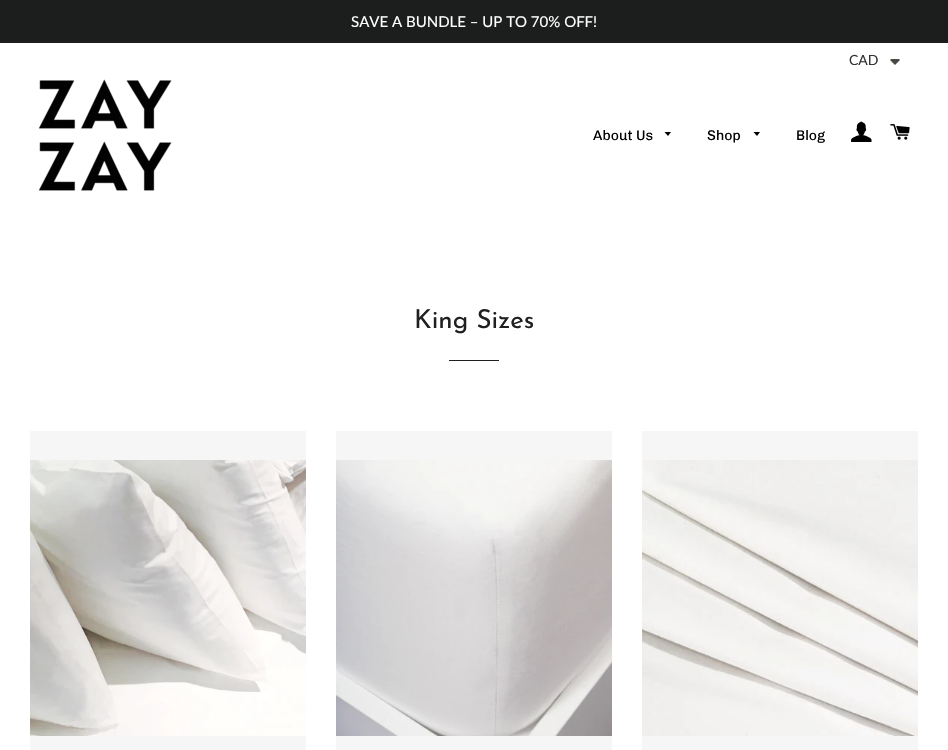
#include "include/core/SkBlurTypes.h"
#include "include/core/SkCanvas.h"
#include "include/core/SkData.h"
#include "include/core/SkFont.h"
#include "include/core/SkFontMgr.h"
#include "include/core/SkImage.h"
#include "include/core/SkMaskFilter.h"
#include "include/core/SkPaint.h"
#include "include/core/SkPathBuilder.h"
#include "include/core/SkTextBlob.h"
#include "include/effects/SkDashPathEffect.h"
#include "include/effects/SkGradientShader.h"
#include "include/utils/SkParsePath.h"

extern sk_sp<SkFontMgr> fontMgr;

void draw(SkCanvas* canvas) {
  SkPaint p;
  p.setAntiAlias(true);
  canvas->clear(SK_ColorWHITE);
  p.setColor(SkColorSetRGB(28, 29, 29));
  canvas->drawRect(SkRect::MakeLTRB(0, 0, 948, 43), p);
  canvas->drawImageRect(SkImages::DeferredFromEncodedData(SkData::MakeFromFileName("images/1.png")), SkRect::MakeLTRB(38, 79, 172, 191), SkSamplingOptions());
  p.setColor(SK_ColorBLACK);
  canvas->drawPath(SkPathBuilder().moveTo(664.5f, 132).lineTo(668, 136).lineTo(671, 132).close().detach(), p);
  canvas->drawPath(SkPathBuilder().moveTo(753.5f, 132).lineTo(757, 136).lineTo(760, 132).close().detach(), p);
  canvas->drawImageRect(SkImages::DeferredFromEncodedData(SkData::MakeFromFileName("images/2.png")), SkRect::MakeLTRB(851, 121, 872, 142), SkSamplingOptions());
  canvas->drawImageRect(SkImages::DeferredFromEncodedData(SkData::MakeFromFileName("images/3.png")), SkRect::MakeLTRB(890, 124, 910, 140), SkSamplingOptions());
  p.setColor(SkColorSetRGB(71, 73, 66));
  canvas->drawPath(SkPathBuilder().moveTo(892, 59).cubicTo(891, 59, 890.5f, 59.5f, 890, 60).lineTo(895, 65).lineTo(900, 60).lineTo(899, 59).close().detach(), p);
  p.setColor(SkColorSetRGB(31, 32, 33));
  canvas->drawRect(SkRect::MakeLTRB(449, 360, 499, 361), p);
  p.setColor(SkColorSetRGB(246, 246, 246));
  canvas->drawRect(SkRect::MakeLTRB(30, 431, 306, 750), p);
  canvas->drawImageRect(SkImages::DeferredFromEncodedData(SkData::MakeFromFileName("images/4.png")), SkRect::MakeLTRB(30, 460, 306, 736), SkSamplingOptions());
  canvas->drawRect(SkRect::MakeLTRB(336, 431, 612, 750), p);
  canvas->drawImageRect(SkImages::DeferredFromEncodedData(SkData::MakeFromFileName("images/5.png")), SkRect::MakeLTRB(336, 460, 612, 736), SkSamplingOptions());
  canvas->drawRect(SkRect::MakeLTRB(642, 431, 918, 750), p);
  canvas->drawImageRect(SkImages::DeferredFromEncodedData(SkData::MakeFromFileName("images/6.png")), SkRect::MakeLTRB(642, 460, 918, 736), SkSamplingOptions());
  SkFont font1(fontMgr->matchFamilyStyle("Lato", SkFontStyle::Normal()), 15);
  font1.setSubpixel(true);
  p.setColor(SK_ColorWHITE);
  canvas->drawString("SAVE A BUNDLE – UP TO 70% OFF!", 351, 27, font1, p);
  SkFont font2(fontMgr->matchFamilyStyle("Chivo", SkFontStyle::Normal()), 14);
  font2.setSubpixel(true);
  p.setColor(SK_ColorBLACK);
  canvas->drawString("About Us", 593, 140, font2, p);
  canvas->drawString("Shop", 707, 140, font2, p);
  canvas->drawString("Blog", 796, 140, font2, p);
  SkFont font3(fontMgr->matchFamilyStyle("Lato", SkFontStyle::Normal()), 14);
  font3.setSubpixel(true);
  p.setColor(SkColorSetRGB(51, 51, 51));
  canvas->drawString("CAD", 849, 65, font3, p);
  SkFont font4(fontMgr->matchFamilyStyle("Josefin Sans", SkFontStyle::Normal()), 26);
  font4.setSubpixel(true);
  p.setColor(SkColorSetRGB(31, 32, 33));
  canvas->drawString("King Sizes", 414, 328, font4, p);
}
